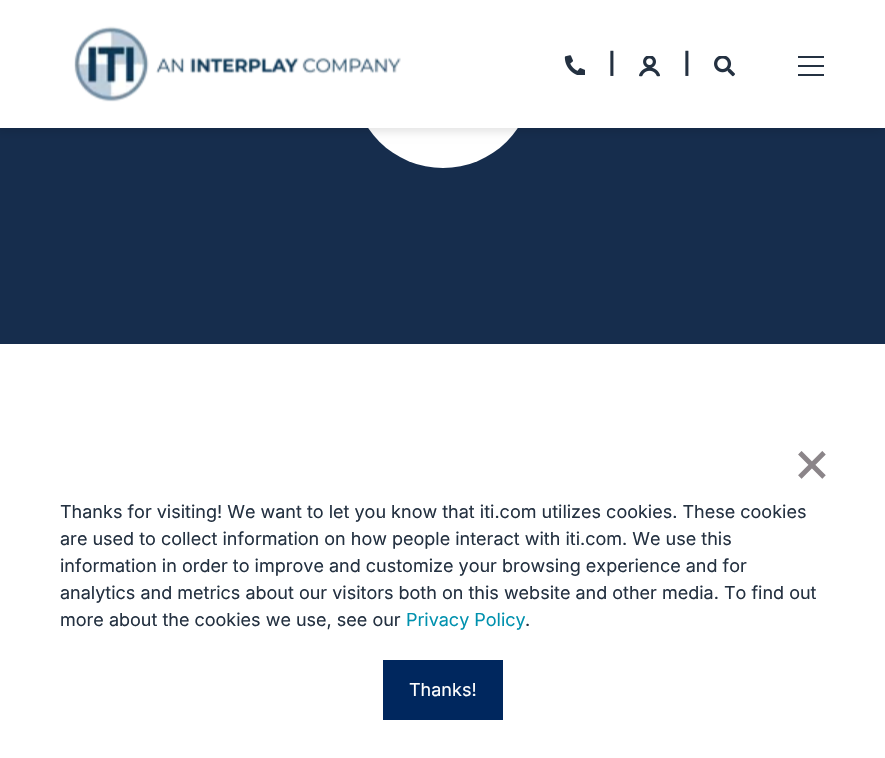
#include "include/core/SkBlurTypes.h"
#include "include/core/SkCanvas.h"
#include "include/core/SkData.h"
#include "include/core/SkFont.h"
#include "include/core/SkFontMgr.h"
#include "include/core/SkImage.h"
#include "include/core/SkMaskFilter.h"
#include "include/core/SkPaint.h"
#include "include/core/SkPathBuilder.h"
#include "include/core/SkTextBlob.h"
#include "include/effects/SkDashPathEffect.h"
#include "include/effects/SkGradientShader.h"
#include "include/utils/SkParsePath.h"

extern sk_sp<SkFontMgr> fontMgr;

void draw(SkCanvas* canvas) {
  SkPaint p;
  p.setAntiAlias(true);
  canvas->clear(SK_ColorWHITE);
  p.setColor(SkColorSetRGB(22, 45, 77));
  canvas->drawRect(SkRect::MakeLTRB(0, 128, 885, 344), p);
  p.setColor(SK_ColorWHITE);
  canvas->drawCircle(443, 78, 90, p);
  p.setColor(SkColorSetARGB(26, 0, 0, 0));
  p.setMaskFilter(SkMaskFilter::MakeBlur(kNormal_SkBlurStyle, 4));
  canvas->drawRect(SkRect::MakeLTRB(-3, 5, 882, 132), p);
  p.setMaskFilter(nullptr);
  p.setColor(SK_ColorWHITE);
  canvas->drawRect(SkRect::MakeLTRB(0, 0, 885, 128), p);
  canvas->drawImageRect(SkImages::DeferredFromEncodedData(SkData::MakeFromFileName("images/1.png")), SkRect::MakeLTRB(74, 26, 401, 102), SkSamplingOptions());
  canvas->drawImageRect(SkImages::DeferredFromEncodedData(SkData::MakeFromFileName("images/2.png")), SkRect::MakeLTRB(564, 55, 585, 75), SkSamplingOptions());
  canvas->drawImageRect(SkImages::DeferredFromEncodedData(SkData::MakeFromFileName("images/3.png")), SkRect::MakeLTRB(639, 56, 660, 77), SkSamplingOptions());
  canvas->drawImageRect(SkImages::DeferredFromEncodedData(SkData::MakeFromFileName("images/4.png")), SkRect::MakeLTRB(714, 56, 735, 77), SkSamplingOptions());
  p.setColor(SkColorSetRGB(36, 49, 65));
  canvas->drawRect(SkRect::MakeLTRB(798, 56, 824, 58), p);
  canvas->drawRect(SkRect::MakeLTRB(798, 65, 824, 67), p);
  canvas->drawRect(SkRect::MakeLTRB(798, 74, 824, 76), p);
  p.setColor(SkColorSetRGB(0, 39, 94));
  canvas->drawRect(SkRect::MakeLTRB(383, 660, 503, 720), p);
  SkFont font1(fontMgr->matchFamilyStyle("Inter", SkFontStyle::Bold()), 21);
  font1.setSubpixel(true);
  p.setColor(SkColorSetRGB(36, 49, 65));
  canvas->drawString("|", 608, 71, font1, p);
  canvas->drawString("|", 683, 71, font1, p);
  SkFont font2(fontMgr->matchFamilyStyle("Inter", SkFontStyle::Normal()), 60);
  font2.setSubpixel(true);
  p.setColor(SkColorSetRGB(139, 133, 137));
  canvas->drawString("×", 792, 482, font2, p);
  SkFont font3(fontMgr->matchFamilyStyle("Inter", SkFontStyle::Normal()), 18);
  font3.setSubpixel(true);
  p.setColor(SkColorSetRGB(36, 49, 65));
  canvas->drawString("Thanks for visiting! We want to let you know that iti.com utilizes cookies. These cookies", 60, 518, font3, p);
  canvas->drawString("are used to collect information on how people interact with iti.com. We use this", 60, 545, font3, p);
  canvas->drawString("information in order to improve and customize your browsing experience and for", 60, 572, font3, p);
  canvas->drawString("analytics and metrics about our visitors both on this website and other media. To find out", 60, 599, font3, p);
  canvas->drawString("more about the cookies we use, see our", 60, 626, font3, p);
  p.setColor(SkColorSetRGB(0, 145, 174));
  canvas->drawString("Privacy Policy", 406, 626, font3, p);
  p.setColor(SkColorSetRGB(36, 49, 65));
  canvas->drawString(".", 525, 626, font3, p);
  p.setColor(SK_ColorWHITE);
  canvas->drawString("Thanks!", 409, 696, font3, p);
}
